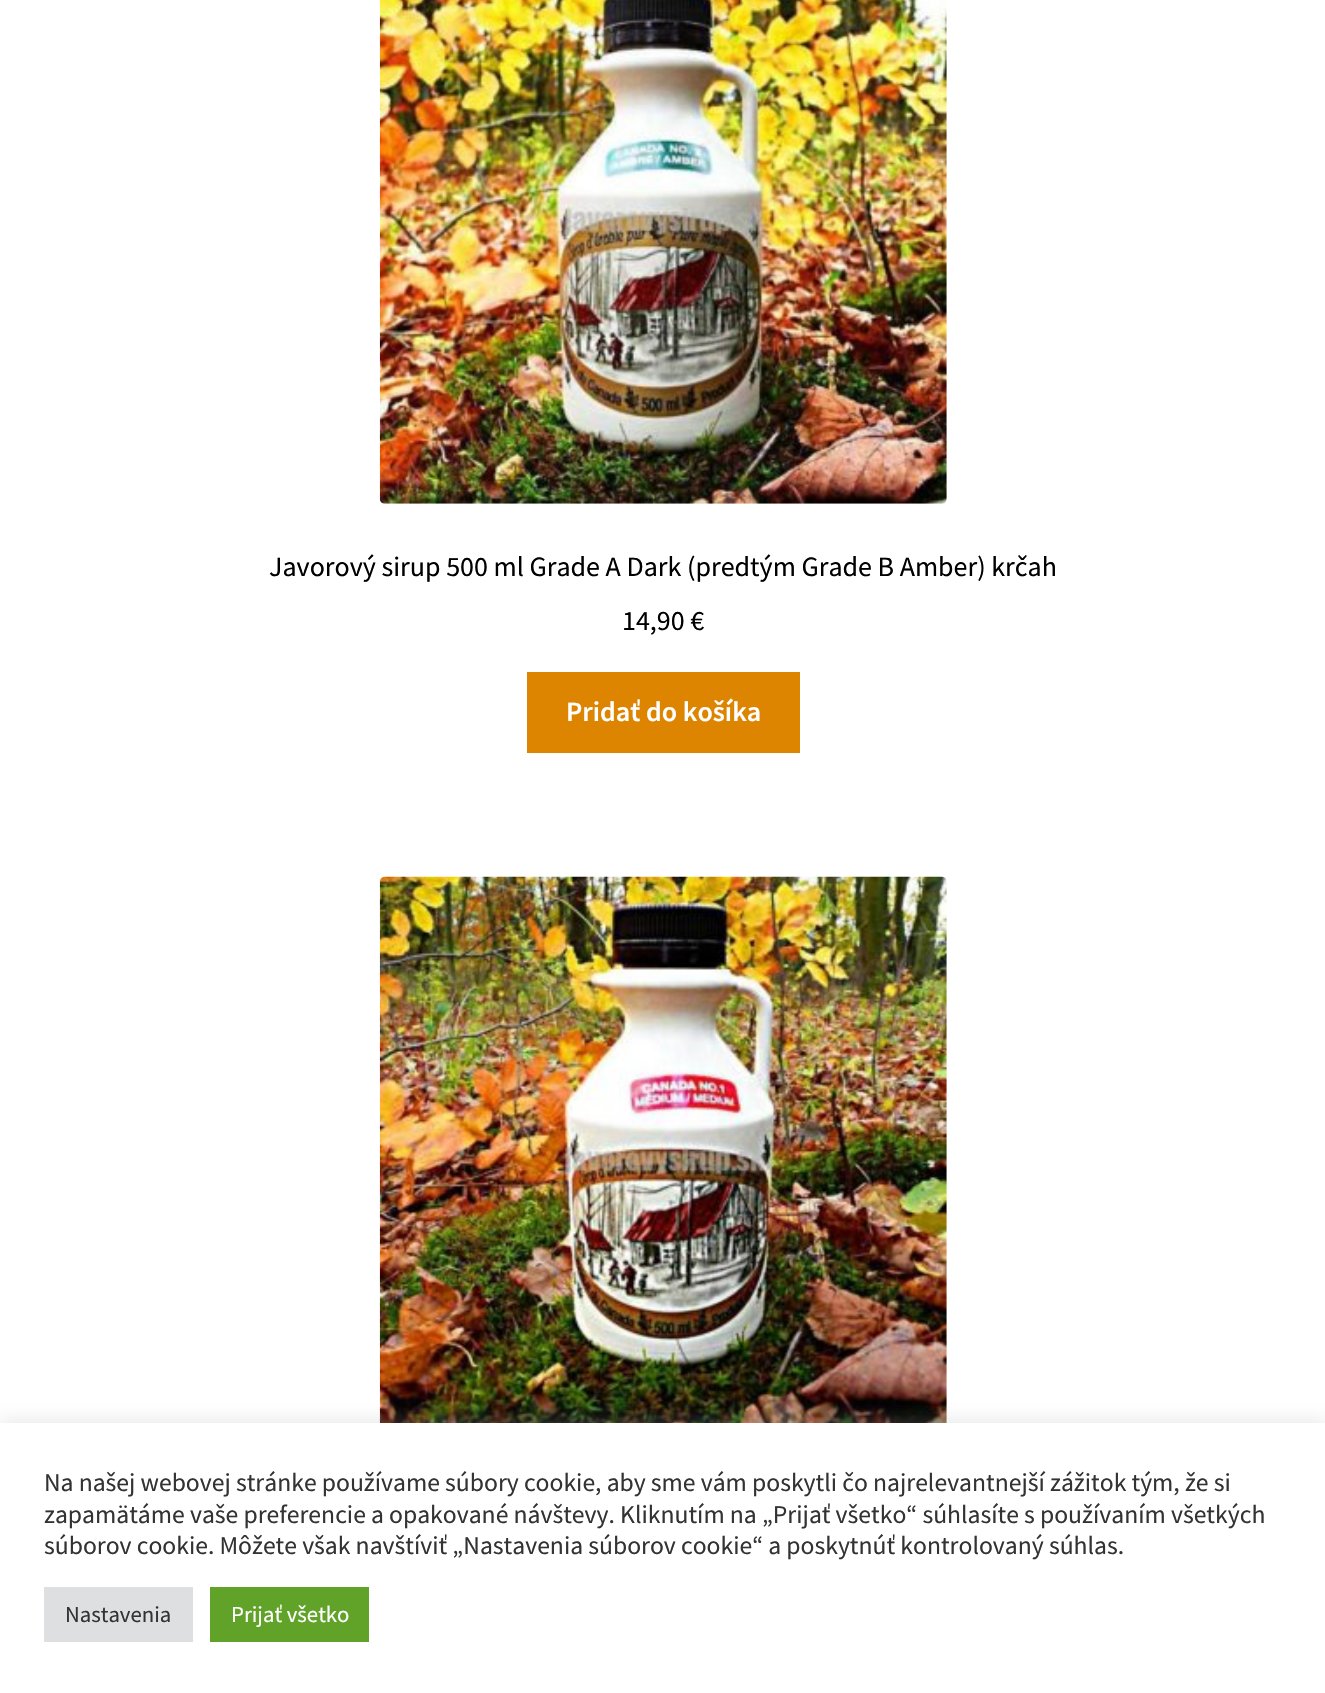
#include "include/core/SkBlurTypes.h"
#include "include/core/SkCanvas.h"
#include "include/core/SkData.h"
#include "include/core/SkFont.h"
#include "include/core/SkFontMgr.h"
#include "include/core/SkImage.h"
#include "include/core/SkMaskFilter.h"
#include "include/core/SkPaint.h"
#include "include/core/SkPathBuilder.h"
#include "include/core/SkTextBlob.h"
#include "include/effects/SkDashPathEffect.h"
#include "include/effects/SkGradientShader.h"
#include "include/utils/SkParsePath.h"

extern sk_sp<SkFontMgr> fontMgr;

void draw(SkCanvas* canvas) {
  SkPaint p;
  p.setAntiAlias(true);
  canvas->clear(SK_ColorWHITE);
  canvas->drawImageRect(SkImages::DeferredFromEncodedData(SkData::MakeFromFileName("images/1.png")), SkRect::MakeLTRB(379, 0, 947, 504), SkSamplingOptions());
  p.setColor(SkColorSetRGB(221, 133, 0));
  canvas->drawRect(SkRect::MakeLTRB(527, 672, 800, 753), p);
  canvas->drawImageRect(SkImages::DeferredFromEncodedData(SkData::MakeFromFileName("images/2.png")), SkRect::MakeLTRB(379, 876, 947, 1423), SkSamplingOptions());
  p.setColor(SkColorSetARGB(77, 172, 171, 171));
  p.setMaskFilter(SkMaskFilter::MakeBlur(kNormal_SkBlurStyle, 9));
  canvas->drawRect(SkRect::MakeLTRB(0, 1421, 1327, 1692), p);
  p.setMaskFilter(nullptr);
  p.setColor(SK_ColorWHITE);
  canvas->drawRect(SkRect::MakeLTRB(0, 1423, 1325, 1693), p);
  p.setColor(SkColorSetRGB(222, 223, 224));
  canvas->drawRect(SkRect::MakeLTRB(44, 1587, 193, 1642), p);
  p.setColor(SkColorSetRGB(97, 162, 41));
  canvas->drawRect(SkRect::MakeLTRB(210, 1587, 369, 1642), p);
  SkFont font1(fontMgr->matchFamilyStyle("Source Sans Pro", SkFontStyle::Normal()), 28);
  font1.setSubpixel(true);
  p.setColor(SK_ColorBLACK);
  canvas->drawString("Javorový sirup 500 ml Grade A Dark (predtým Grade B Amber) krčah", 269, 576, font1, p);
  canvas->drawString("14,90 €", 622, 630, font1, p);
  SkFont font2(fontMgr->matchFamilyStyle("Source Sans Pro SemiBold", SkFontStyle(600, SkFontStyle::kNormal_Width, SkFontStyle::kUpright_Slant)), 28);
  font2.setSubpixel(true);
  p.setColor(SK_ColorWHITE);
  canvas->drawString("Pridať do košíka", 566, 721, font2, p);
  SkFont font3(fontMgr->matchFamilyStyle("Source Sans Pro", SkFontStyle::Normal()), 25.65f);
  font3.setSubpixel(true);
  p.setColor(SkColorSetRGB(51, 51, 51));
  canvas->drawString("Na našej webovej stránke používame súbory cookie, aby sme vám poskytli čo najrelevantnejší zážitok tým, že si", 44, 1491, font3, p);
  canvas->drawString("zapamätáme vaše preferencie a opakované návštevy. Kliknutím na „Prijať všetko“ súhlasíte s používaním všetkých", 44, 1523, font3, p);
  canvas->drawString("súborov cookie. Môžete však navštíviť „Nastavenia súborov cookie“ a poskytnúť kontrolovaný súhlas.", 44, 1554, font3, p);
  SkFont font4(fontMgr->matchFamilyStyle("Source Sans Pro", SkFontStyle::Normal()), 22.75f);
  font4.setSubpixel(true);
  canvas->drawString("Nastavenia", 65, 1622, font4, p);
  p.setColor(SK_ColorWHITE);
  canvas->drawString("Prijať všetko", 231, 1622, font4, p);
}
